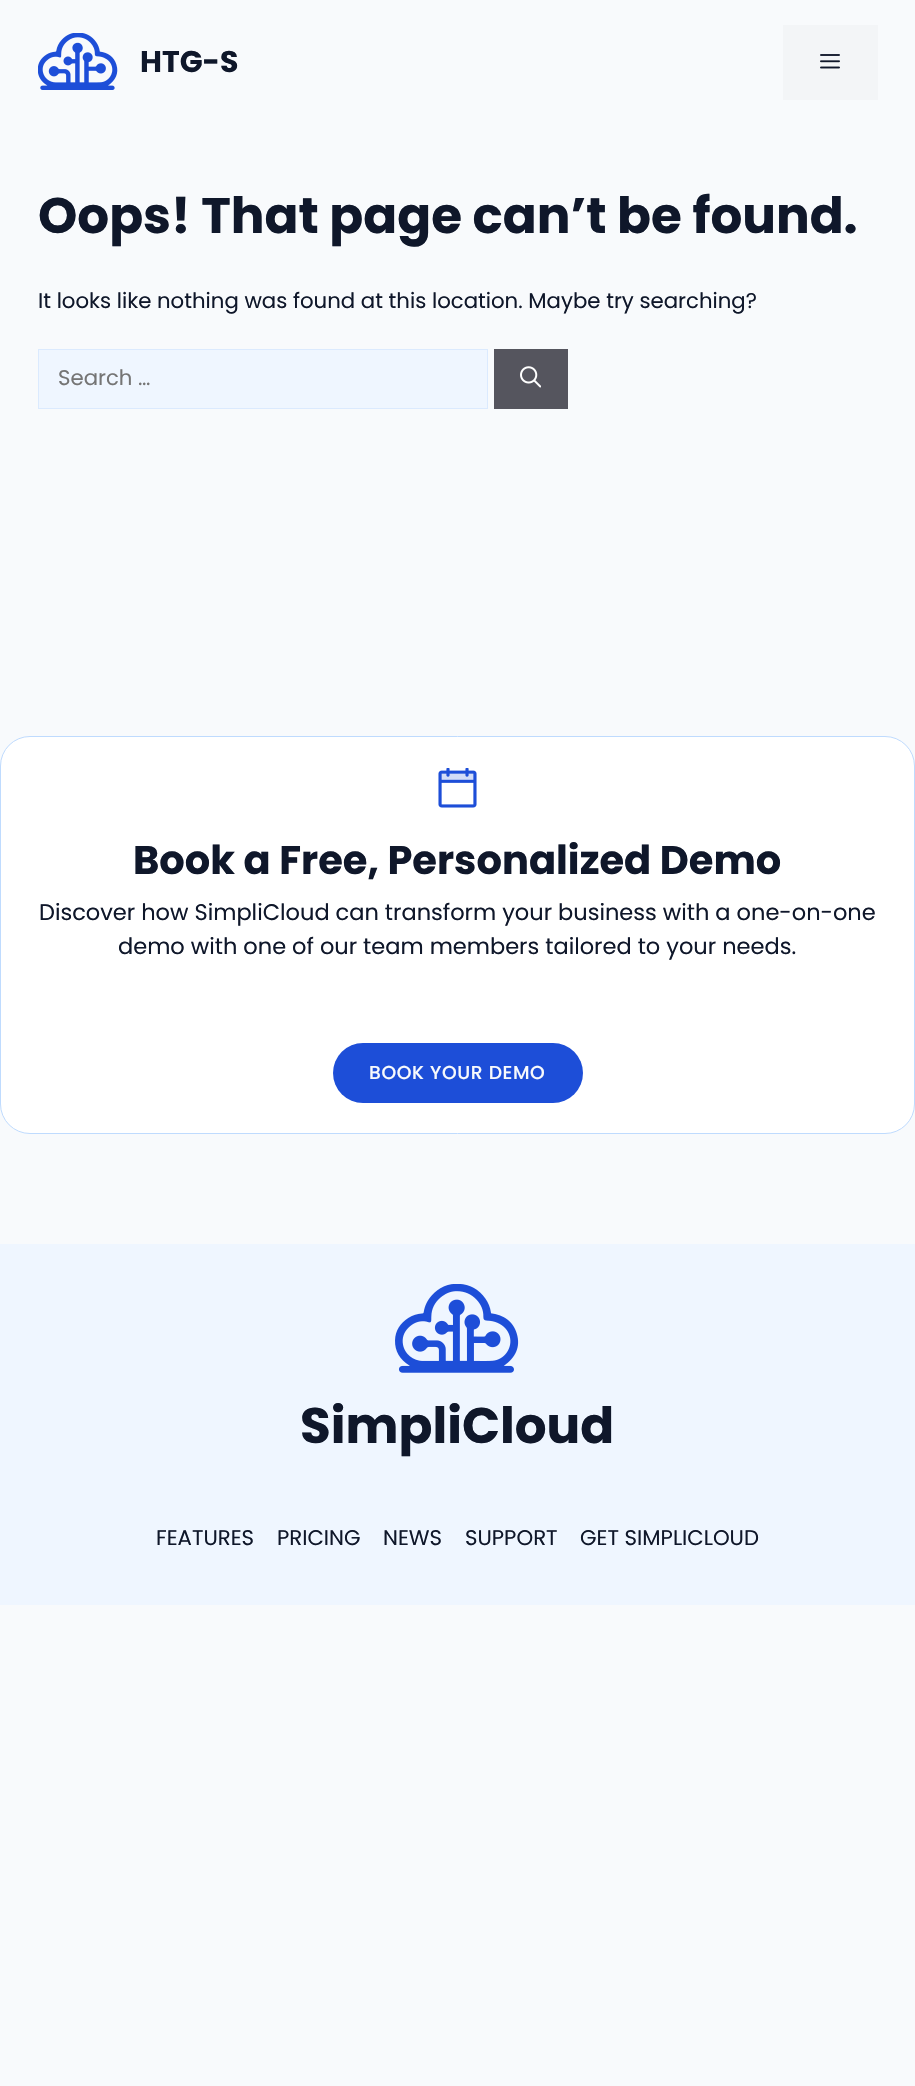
#include "include/core/SkBlurTypes.h"
#include "include/core/SkCanvas.h"
#include "include/core/SkData.h"
#include "include/core/SkFont.h"
#include "include/core/SkFontMgr.h"
#include "include/core/SkImage.h"
#include "include/core/SkMaskFilter.h"
#include "include/core/SkPaint.h"
#include "include/core/SkPathBuilder.h"
#include "include/core/SkTextBlob.h"
#include "include/effects/SkDashPathEffect.h"
#include "include/effects/SkGradientShader.h"
#include "include/utils/SkParsePath.h"

extern sk_sp<SkFontMgr> fontMgr;

void draw(SkCanvas* canvas) {
  SkPaint p;
  p.setAntiAlias(true);
  auto spacedText = [&](const char* s, float x, float y, const SkFont& font, const SkPaint& ink, float letter, float word) {
    std::vector<SkGlyphID> glyphs(font.countText(s, strlen(s), SkTextEncoding::kUTF8));
    std::vector<float> xs(glyphs.size());
    font.textToGlyphs(s, strlen(s), SkTextEncoding::kUTF8, glyphs);
    font.getXPos(glyphs, xs, x);
    float extra = 0;
    for (size_t i = 0; i < glyphs.size(); i++) {
      xs[i] += extra;
      extra += letter + word * (glyphs[i] == font.unicharToGlyph(' '));
    }
    canvas->drawTextBlob(SkTextBlob::MakeFromPosHGlyphs(glyphs, xs, y, font), 0, 0, ink);
  };
  canvas->clear(SkColorSetRGB(248, 250, 252));
  canvas->drawImageRect(SkImages::DeferredFromEncodedData(SkData::MakeFromFileName("images/1.png")), SkRect::MakeLTRB(38, 33, 118, 90), SkSamplingOptions());
  p.setColor(SkColorSetRGB(243, 245, 247));
  canvas->drawRect(SkRect::MakeLTRB(783, 25, 878, 100), p);
  canvas->drawImageRect(SkImages::DeferredFromEncodedData(SkData::MakeFromFileName("images/2.png")), SkRect::MakeLTRB(820, 54, 840, 69), SkSamplingOptions());
  p.setColor(SkColorSetRGB(239, 246, 255));
  canvas->drawRect(SkRect::MakeLTRB(38.5f, 349.5f, 487.5f, 408.5f), p);
  p.setStyle(SkPaint::kStroke_Style);
  p.setStrokeWidth(1);
  p.setColor(SkColorSetRGB(219, 234, 254));
  canvas->drawRect(SkRect::MakeLTRB(38.5f, 349.5f, 487.5f, 408.5f), p);
  p.setStyle(SkPaint::kFill_Style);
  p.setColor(SkColorSetRGB(85, 85, 94));
  canvas->drawRect(SkRect::MakeLTRB(494, 349, 568, 409), p);
  canvas->drawImageRect(SkImages::DeferredFromEncodedData(SkData::MakeFromFileName("images/3.png")), SkRect::MakeLTRB(520, 366, 541, 388), SkSamplingOptions());
  p.setColor(SK_ColorWHITE);
  canvas->drawRoundRect(SkRect::MakeLTRB(0.5f, 736.5f, 914.5f, 1133.5f), 29.5f, 29.5f, p);
  p.setStyle(SkPaint::kStroke_Style);
  p.setColor(SkColorSetRGB(191, 219, 254));
  canvas->drawRoundRect(SkRect::MakeLTRB(0.5f, 736.5f, 914.5f, 1133.5f), 29.5f, 29.5f, p);
  canvas->drawImageRect(SkImages::DeferredFromEncodedData(SkData::MakeFromFileName("images/4.png")), SkRect::MakeLTRB(438, 768, 477, 808), SkSamplingOptions());
  p.setStyle(SkPaint::kFill_Style);
  p.setColor(SkColorSetRGB(29, 78, 216));
  canvas->drawRoundRect(SkRect::MakeLTRB(333, 1043, 583, 1103), 30, 30, p);
  p.setColor(SkColorSetRGB(239, 246, 255));
  canvas->drawRect(SkRect::MakeLTRB(0, 1244, 915, 1605), p);
  canvas->drawImageRect(SkImages::DeferredFromEncodedData(SkData::MakeFromFileName("images/5.png")), SkRect::MakeLTRB(395, 1284, 519, 1373), SkSamplingOptions());
  SkFont font1(fontMgr->matchFamilyStyle("Poppins", SkFontStyle::Bold()), 30);
  font1.setSubpixel(true);
  p.setColor(SkColorSetRGB(15, 23, 42));
  canvas->drawString("HTG-S", 140, 72, font1, p);
  SkFont font2(fontMgr->matchFamilyStyle("Poppins", SkFontStyle::Bold()), 50);
  font2.setSubpixel(true);
  canvas->drawString("Oops! That page can’t be found.", 38, 233, font2, p);
  SkFont font3(fontMgr->matchFamilyStyle("Poppins", SkFontStyle::Normal()), 21.25f);
  font3.setSubpixel(true);
  canvas->drawString("It looks like nothing was found at this location. Maybe try searching?", 38, 308, font3, p);
  p.setColor(SkColorSetRGB(117, 117, 117));
  canvas->drawString("Search …", 58, 385, font3, p);
  SkFont font4(fontMgr->matchFamilyStyle("Poppins", SkFontStyle::Bold()), 40);
  font4.setSubpixel(true);
  p.setColor(SkColorSetRGB(15, 23, 42));
  canvas->drawString("Book a Free, Personalized Demo", 133, 874, font4, p);
  SkFont font5(fontMgr->matchFamilyStyle("Poppins", SkFontStyle::Normal()), 22.5f);
  font5.setSubpixel(true);
  canvas->drawString("Discover how SimpliCloud can transform your business with a one-on-one", 39, 920, font5, p);
  canvas->drawString("demo with one of our team members tailored to your needs.", 118, 954, font5, p);
  SkFont font6(fontMgr->matchFamilyStyle("Poppins", SkFontStyle(500, SkFontStyle::kNormal_Width, SkFontStyle::kUpright_Slant)), 18.75f);
  font6.setSubpixel(true);
  p.setColor(SkColorSetRGB(248, 250, 252));
  spacedText("BOOK YOUR DEMO", 369, 1079, font6, p, 0.6f, 0);
  p.setColor(SkColorSetRGB(15, 23, 42));
  canvas->drawString("SimpliCloud", 300, 1443, font2, p);
  canvas->drawString("FEATURES", 156, 1545, font3, p);
  canvas->drawString("PRICING", 277, 1545, font3, p);
  canvas->drawString("NEWS", 383, 1545, font3, p);
  canvas->drawString("SUPPORT", 465, 1545, font3, p);
  canvas->drawString("GET SIMPLICLOUD", 580, 1545, font3, p);
}
